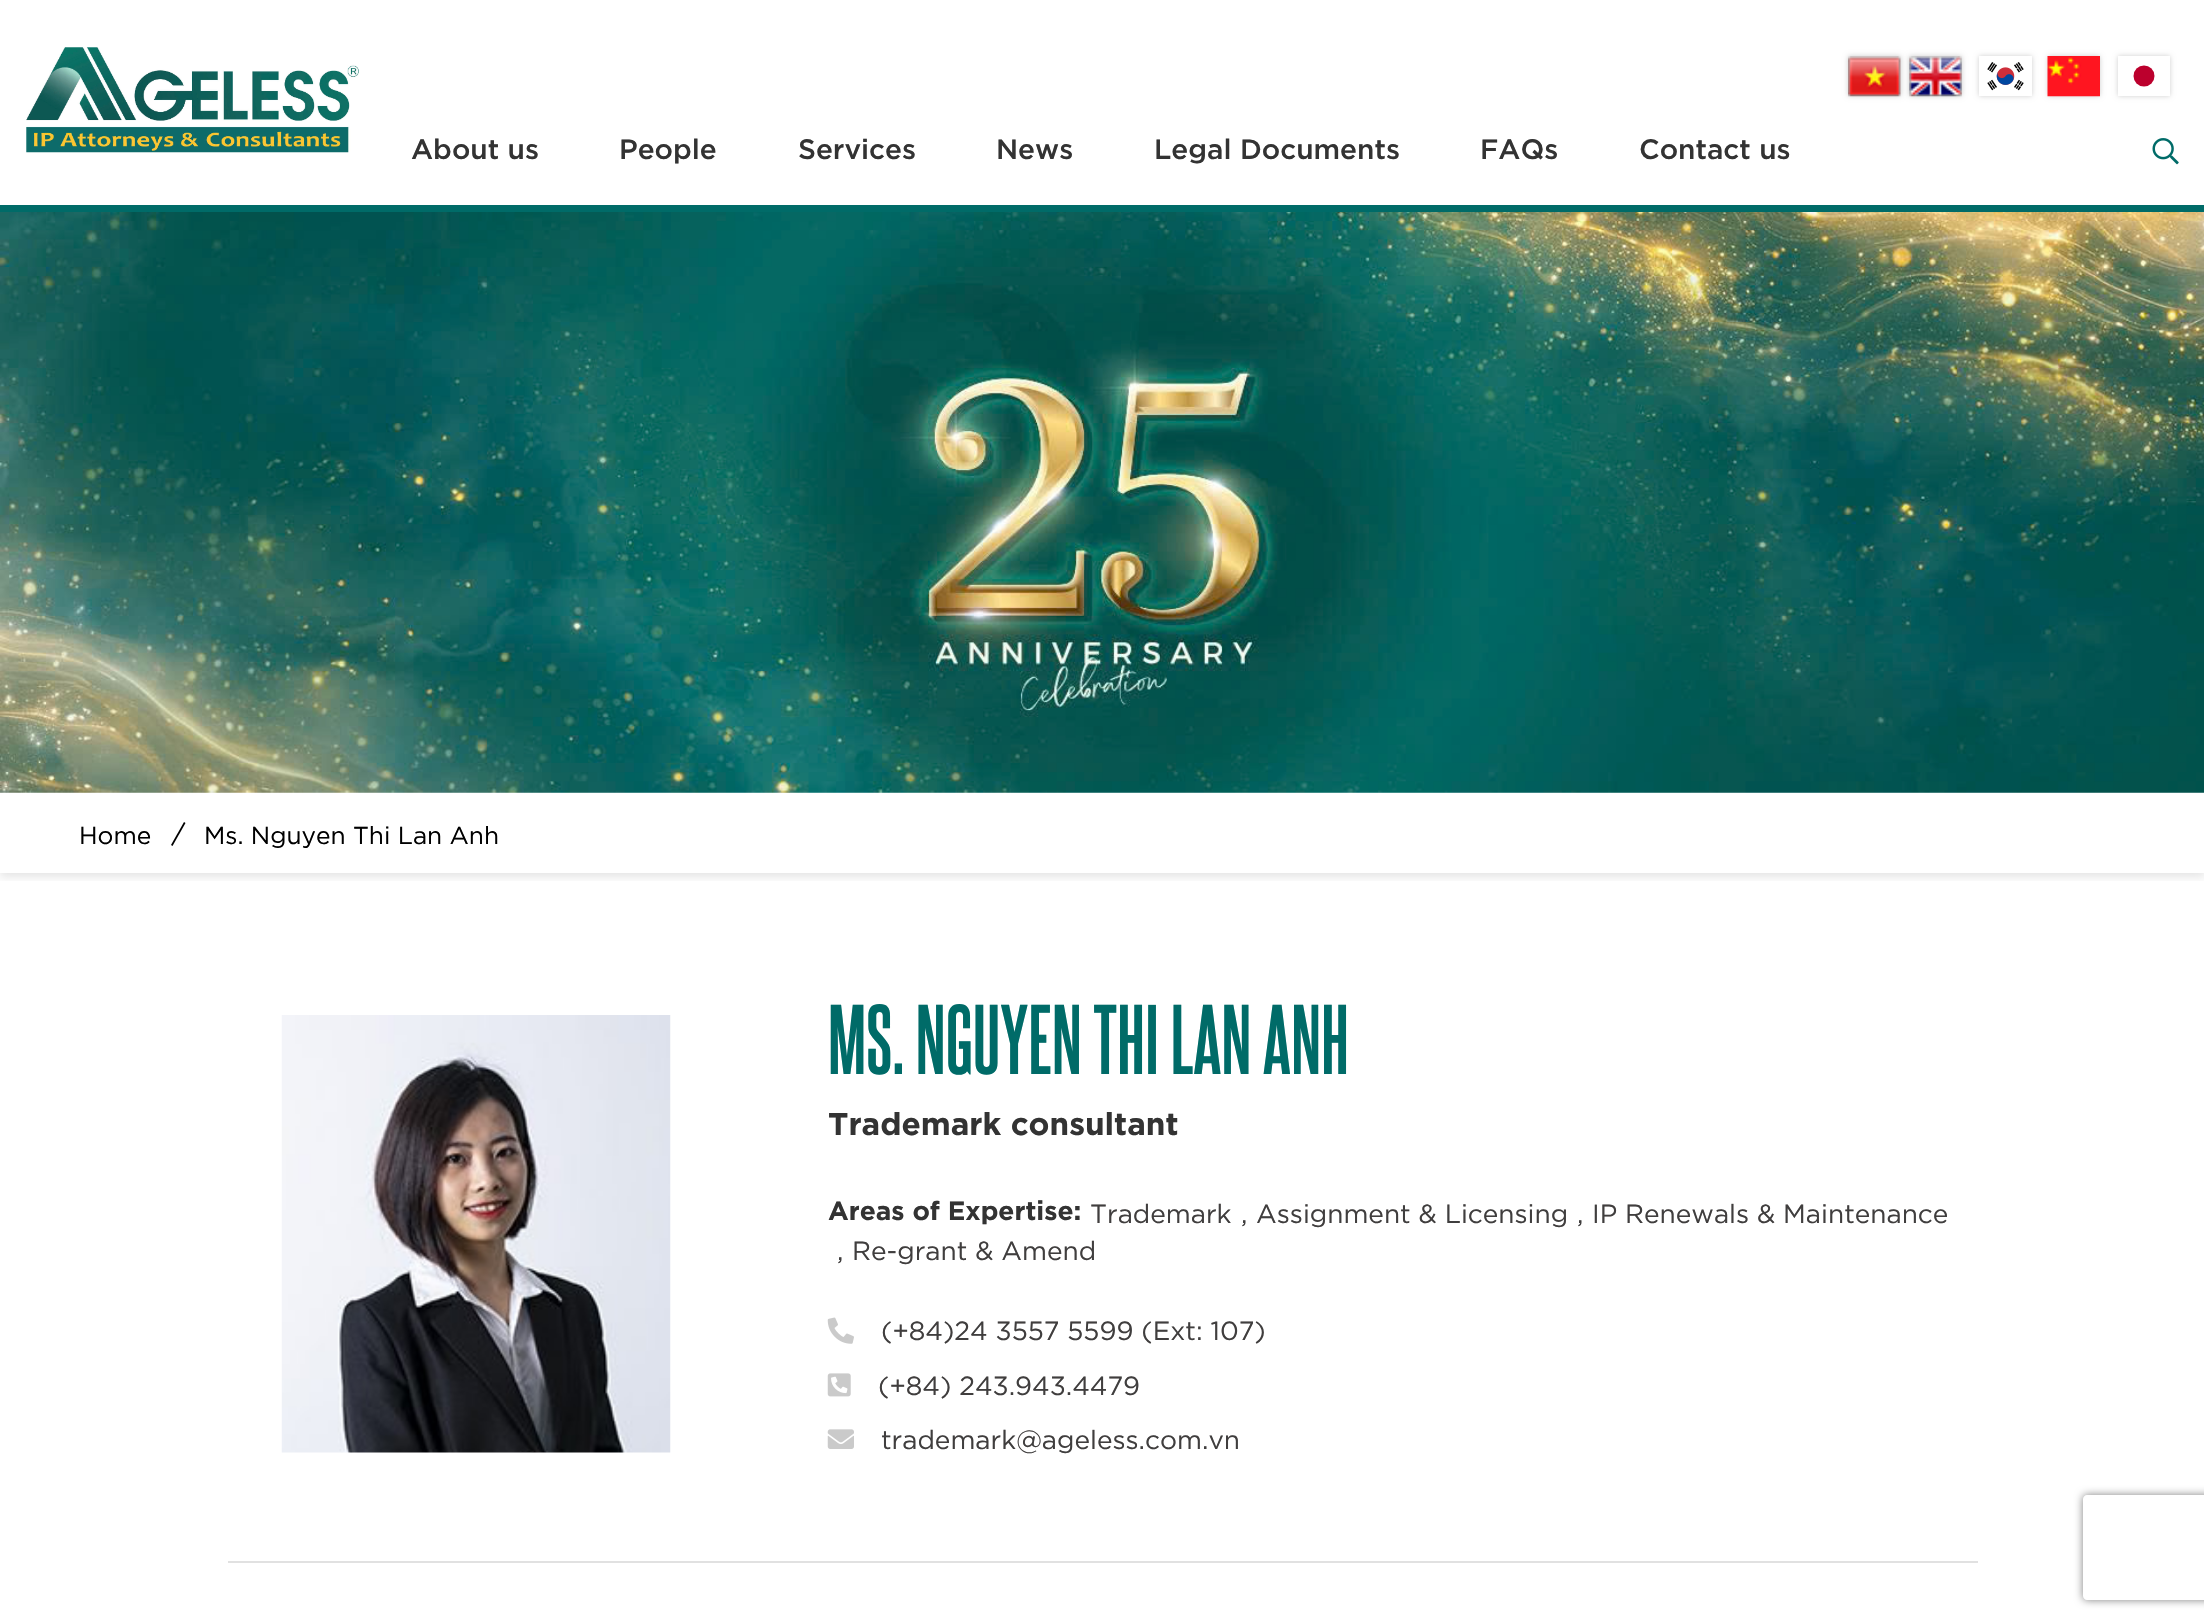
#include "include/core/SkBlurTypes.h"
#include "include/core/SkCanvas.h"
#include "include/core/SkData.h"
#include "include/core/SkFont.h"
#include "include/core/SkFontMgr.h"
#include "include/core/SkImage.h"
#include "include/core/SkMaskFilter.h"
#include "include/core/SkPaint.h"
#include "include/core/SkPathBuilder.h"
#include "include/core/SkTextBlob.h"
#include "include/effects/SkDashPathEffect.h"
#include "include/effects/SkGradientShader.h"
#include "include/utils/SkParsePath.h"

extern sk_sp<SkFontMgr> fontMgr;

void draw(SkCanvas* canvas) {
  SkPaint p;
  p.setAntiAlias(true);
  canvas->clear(SK_ColorWHITE);
  p.setColor(SkColorSetRGB(0, 107, 104));
  canvas->drawRect(SkRect::MakeLTRB(0, 205, 2204, 212), p);
  canvas->drawImageRect(SkImages::DeferredFromEncodedData(SkData::MakeFromFileName("images/1.png")), SkRect::MakeLTRB(26, 47, 359, 153), SkSamplingOptions());
  p.setColor(SkColorSetRGB(207, 207, 207));
  p.setMaskFilter(SkMaskFilter::MakeBlur(kNormal_SkBlurStyle, 2.5f));
  canvas->drawRect(SkRect::MakeLTRB(1848, 56, 1901, 96), p);
  p.setMaskFilter(nullptr);
  canvas->drawImageRect(SkImages::DeferredFromEncodedData(SkData::MakeFromFileName("images/2.png")), SkRect::MakeLTRB(1848, 56, 1901, 97), SkSamplingOptions());
  p.setMaskFilter(SkMaskFilter::MakeBlur(kNormal_SkBlurStyle, 2.5f));
  canvas->drawRect(SkRect::MakeLTRB(1909, 56, 1962, 96), p);
  p.setMaskFilter(nullptr);
  canvas->drawImageRect(SkImages::DeferredFromEncodedData(SkData::MakeFromFileName("images/3.png")), SkRect::MakeLTRB(1909, 56, 1962, 97), SkSamplingOptions());
  canvas->save();
  canvas->clipPath(SkPathBuilder(SkPathFillType::kEvenOdd).moveTo(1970, 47).lineTo(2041, 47).lineTo(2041, 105).lineTo(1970, 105).close().moveTo(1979, 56).lineTo(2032, 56).lineTo(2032, 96).lineTo(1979, 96).close().detach(), true);
  p.setMaskFilter(SkMaskFilter::MakeBlur(kNormal_SkBlurStyle, 2.5f));
  canvas->drawRect(SkRect::MakeLTRB(1979, 56, 2032, 96), p);
  p.setMaskFilter(nullptr);
  canvas->restore();
  canvas->drawImageRect(SkImages::DeferredFromEncodedData(SkData::MakeFromFileName("images/4.png")), SkRect::MakeLTRB(1979, 59, 2032, 94), SkSamplingOptions());
  p.setMaskFilter(SkMaskFilter::MakeBlur(kNormal_SkBlurStyle, 2.5f));
  canvas->drawRect(SkRect::MakeLTRB(2048, 56, 2100, 96), p);
  p.setMaskFilter(nullptr);
  canvas->drawImageRect(SkImages::DeferredFromEncodedData(SkData::MakeFromFileName("images/5.png")), SkRect::MakeLTRB(2047, 56, 2100, 97), SkSamplingOptions());
  canvas->save();
  canvas->clipPath(SkPathBuilder(SkPathFillType::kEvenOdd).moveTo(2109, 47).lineTo(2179, 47).lineTo(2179, 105).lineTo(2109, 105).close().moveTo(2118, 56).lineTo(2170, 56).lineTo(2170, 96).lineTo(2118, 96).close().detach(), true);
  p.setMaskFilter(SkMaskFilter::MakeBlur(kNormal_SkBlurStyle, 2.5f));
  canvas->drawRect(SkRect::MakeLTRB(2118, 56, 2170, 96), p);
  p.setMaskFilter(nullptr);
  canvas->restore();
  p.setColor(SkColorSetRGB(188, 0, 45));
  canvas->drawCircle(2144, 76, 10.5f, p);
  canvas->drawImageRect(SkImages::DeferredFromEncodedData(SkData::MakeFromFileName("images/6.png")), SkRect::MakeLTRB(2152, 138, 2179, 165), SkSamplingOptions());
  canvas->drawImageRect(SkImages::DeferredFromEncodedData(SkData::MakeFromFileName("images/7.png")), SkRect::MakeLTRB(0, 212, 2204, 793), SkSamplingOptions());
  canvas->save();
  canvas->clipRect(SkRect::MakeLTRB(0, 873, 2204, 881));
  p.setColor(SkColorSetARGB(26, 0, 0, 0));
  p.setMaskFilter(SkMaskFilter::MakeBlur(kNormal_SkBlurStyle, 4.5f));
  canvas->drawRect(SkRect::MakeLTRB(0, 796, 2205, 877), p);
  p.setMaskFilter(nullptr);
  canvas->restore();
  p.setColor(SK_ColorBLACK);
  canvas->drawPath(SkPathBuilder().moveTo(184, 822).lineTo(185.5f, 823).lineTo(172.5f, 846).lineTo(171, 845).close().detach(), p);
  canvas->drawImageRect(SkImages::DeferredFromEncodedData(SkData::MakeFromFileName("images/8.png")), SkRect::MakeLTRB(281, 1015, 671, 1453), SkSamplingOptions());
  canvas->drawImageRect(SkImages::DeferredFromEncodedData(SkData::MakeFromFileName("images/9.png")), SkRect::MakeLTRB(827, 1317, 854, 1344), SkSamplingOptions());
  canvas->drawImageRect(SkImages::DeferredFromEncodedData(SkData::MakeFromFileName("images/10.png")), SkRect::MakeLTRB(827, 1373, 851, 1397), SkSamplingOptions());
  canvas->drawImageRect(SkImages::DeferredFromEncodedData(SkData::MakeFromFileName("images/11.png")), SkRect::MakeLTRB(827, 1429, 854, 1449), SkSamplingOptions());
  p.setColor(SkColorSetRGB(225, 225, 225));
  canvas->drawRect(SkRect::MakeLTRB(228, 1561, 1978, 1563), p);
  canvas->save();
  canvas->clipPath(SkPathBuilder(SkPathFillType::kEvenOdd).moveTo(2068, 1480).lineTo(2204, 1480).lineTo(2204, 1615).lineTo(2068, 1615).close().moveTo(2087, 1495).lineTo(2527, 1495).cubicTo(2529, 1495, 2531, 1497, 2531, 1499).lineTo(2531, 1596).cubicTo(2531, 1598, 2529, 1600, 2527, 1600).lineTo(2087, 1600).cubicTo(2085, 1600, 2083, 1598, 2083, 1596).lineTo(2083, 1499).cubicTo(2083, 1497, 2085, 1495, 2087, 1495).close().detach(), true);
  p.setColor(SkColorSetRGB(128, 128, 128));
  p.setMaskFilter(SkMaskFilter::MakeBlur(kNormal_SkBlurStyle, 4.5f));
  canvas->drawRoundRect(SkRect::MakeLTRB(2083, 1495, 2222, 1600), 4, 4, p);
  p.setMaskFilter(nullptr);
  canvas->restore();
  SkFont font1(fontMgr->matchFamilyStyle("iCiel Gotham", SkFontStyle(500, SkFontStyle::kNormal_Width, SkFontStyle::kUpright_Slant)), 28);
  font1.setSubpixel(true);
  p.setColor(SkColorSetRGB(51, 51, 51));
  canvas->drawString("About us", 411, 159, font1, p);
  canvas->drawString("People", 619, 159, font1, p);
  canvas->drawString("Services", 798, 159, font1, p);
  canvas->drawString("News", 996, 159, font1, p);
  canvas->drawString("Legal Documents", 1154, 159, font1, p);
  canvas->drawString("FAQs", 1480, 159, font1, p);
  canvas->drawString("Contact us", 1639, 159, font1, p);
  SkFont font2(fontMgr->matchFamilyStyle("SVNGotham", SkFontStyle::Normal()), 24.5f);
  font2.setSubpixel(true);
  p.setColor(SK_ColorBLACK);
  canvas->drawString("Home", 79, 844, font2, p);
  canvas->drawString("Ms. Nguyen Thi Lan Anh", 204, 844, font2, p);
  SkFont font3(fontMgr->matchFamilyStyle("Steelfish", SkFontStyle::Bold()), 84);
  font3.setSubpixel(true);
  p.setColor(SkColorSetRGB(0, 107, 104));
  canvas->drawString("MS. NGUYEN THI LAN ANH", 828, 1074, font3, p);
  SkFont font4(fontMgr->matchFamilyStyle("SVNGotham", SkFontStyle::Bold()), 31.5f);
  font4.setSubpixel(true);
  p.setColor(SkColorSetRGB(51, 51, 51));
  canvas->drawString("Trademark consultant", 828, 1135, font4, p);
  SkFont font5(fontMgr->matchFamilyStyle("SVNGotham", SkFontStyle::Bold()), 26.25f);
  font5.setSubpixel(true);
  canvas->drawString("Areas of Expertise:", 828, 1220, font5, p);
  SkFont font6(fontMgr->matchFamilyStyle("SVNGotham", SkFontStyle::Normal()), 26.25f);
  font6.setSubpixel(true);
  p.setColor(SkColorSetRGB(64, 62, 62));
  canvas->drawString("Trademark", 1090, 1223, font6, p);
  canvas->drawString(",", 1241, 1223, font6, p);
  canvas->drawString("Assignment & Licensing", 1256, 1223, font6, p);
  canvas->drawString(",", 1577, 1223, font6, p);
  canvas->drawString("IP Renewals & Maintenance", 1592, 1223, font6, p);
  canvas->drawString(",", 837, 1260, font6, p);
  canvas->drawString("Re-grant & Amend", 852, 1260, font6, p);
  canvas->drawString("(+84)24 3557 5599 (Ext: 107)", 881, 1340, font6, p);
  canvas->drawString("(+84) 243.943.4479", 878, 1395, font6, p);
  canvas->drawString("trademark@ageless.com.vn", 881, 1449, font6, p);
}
